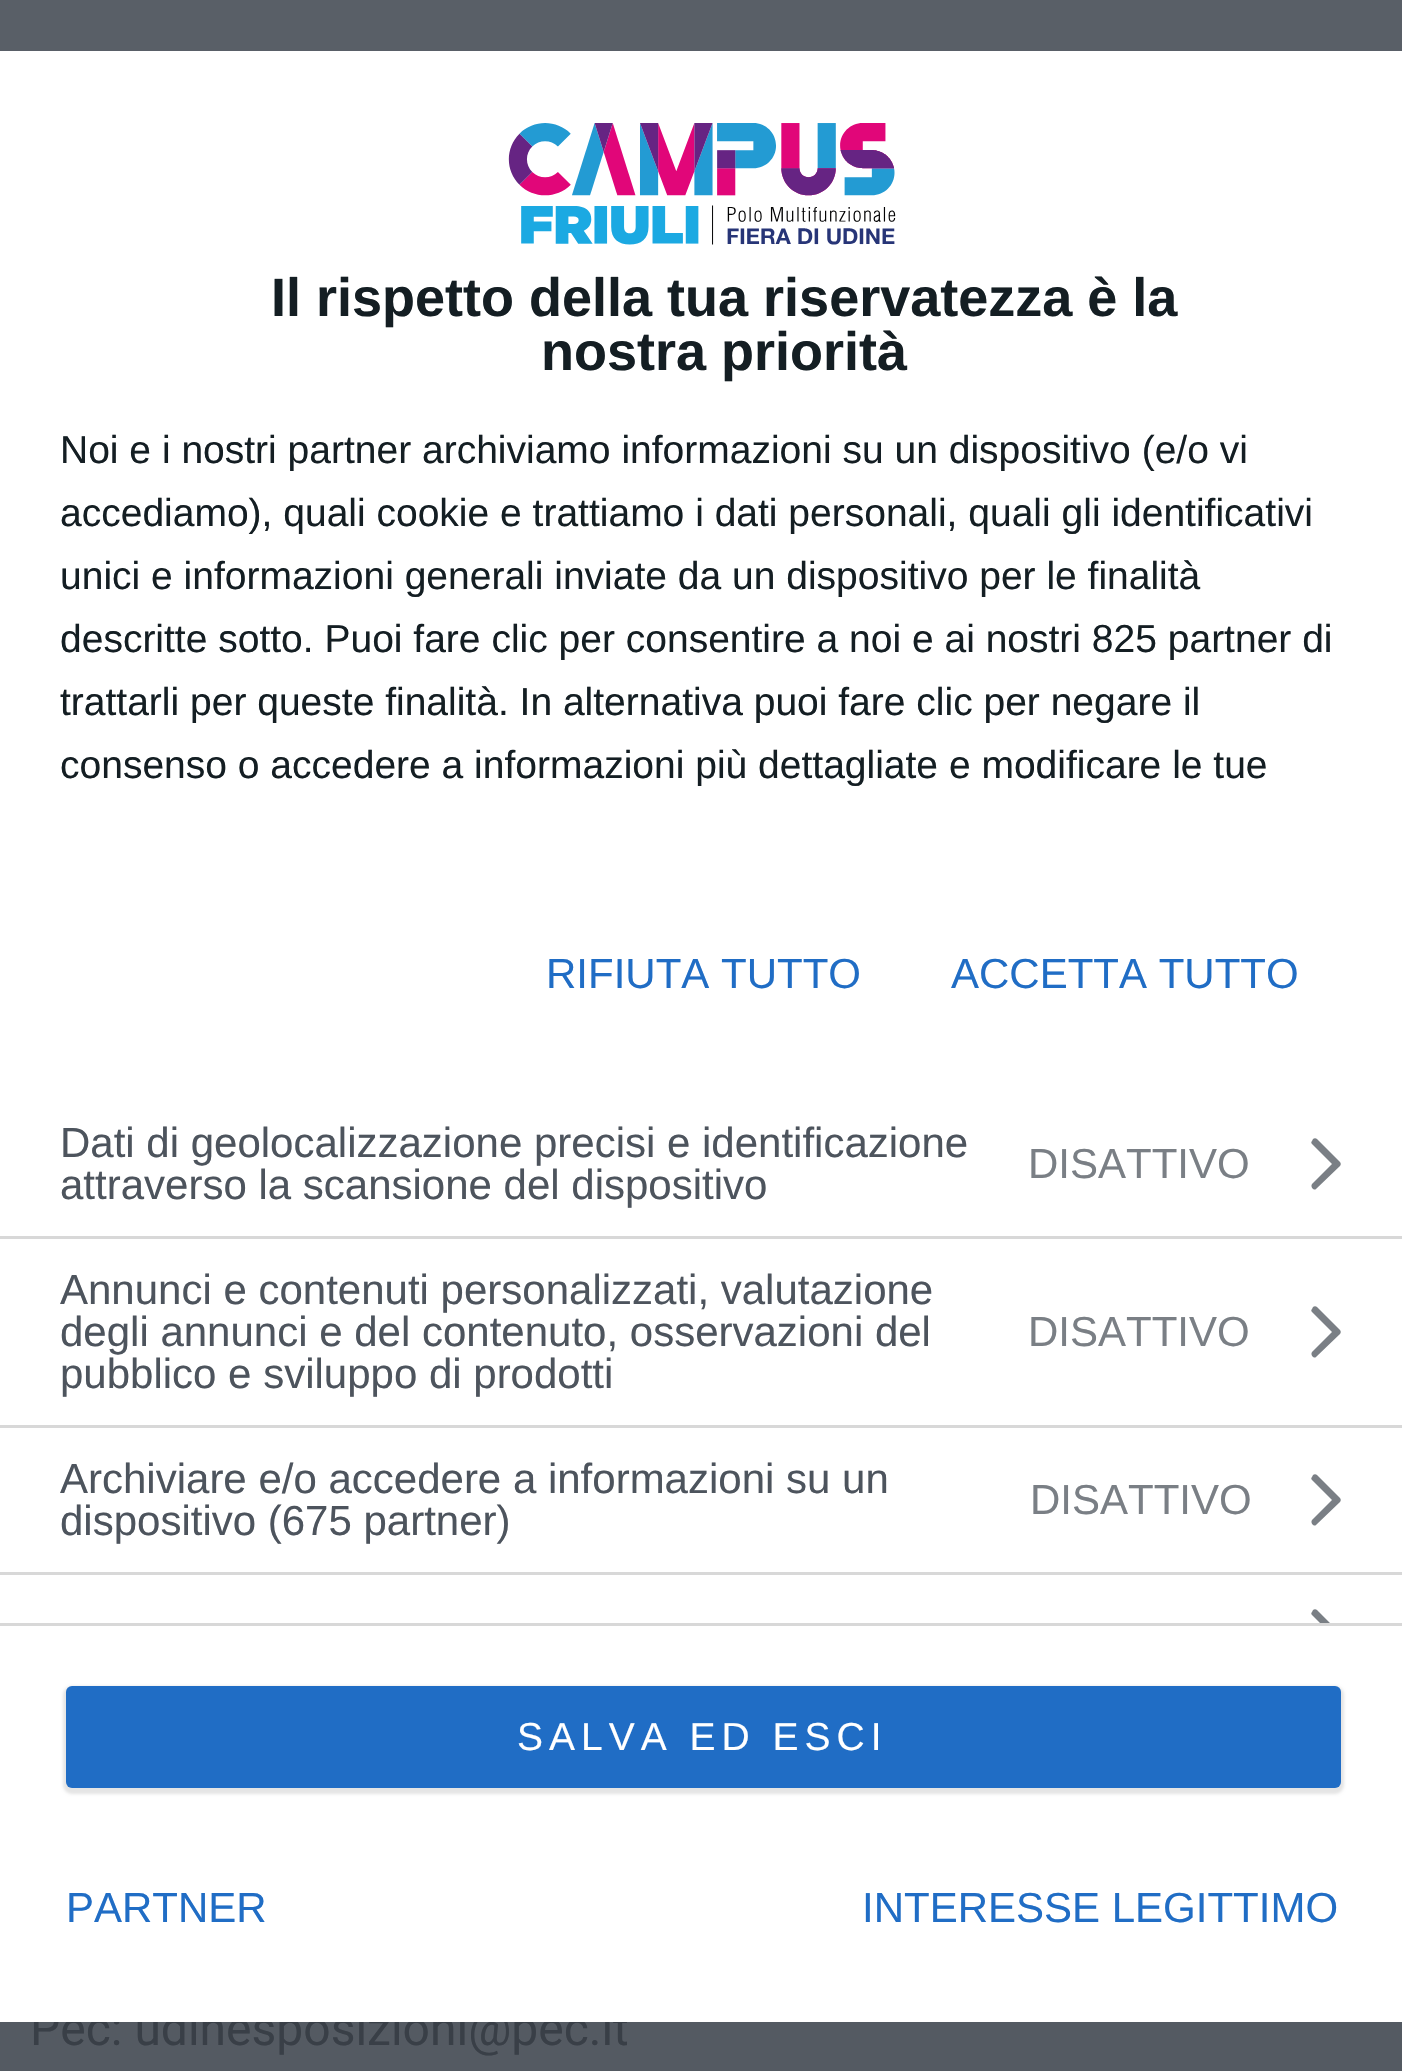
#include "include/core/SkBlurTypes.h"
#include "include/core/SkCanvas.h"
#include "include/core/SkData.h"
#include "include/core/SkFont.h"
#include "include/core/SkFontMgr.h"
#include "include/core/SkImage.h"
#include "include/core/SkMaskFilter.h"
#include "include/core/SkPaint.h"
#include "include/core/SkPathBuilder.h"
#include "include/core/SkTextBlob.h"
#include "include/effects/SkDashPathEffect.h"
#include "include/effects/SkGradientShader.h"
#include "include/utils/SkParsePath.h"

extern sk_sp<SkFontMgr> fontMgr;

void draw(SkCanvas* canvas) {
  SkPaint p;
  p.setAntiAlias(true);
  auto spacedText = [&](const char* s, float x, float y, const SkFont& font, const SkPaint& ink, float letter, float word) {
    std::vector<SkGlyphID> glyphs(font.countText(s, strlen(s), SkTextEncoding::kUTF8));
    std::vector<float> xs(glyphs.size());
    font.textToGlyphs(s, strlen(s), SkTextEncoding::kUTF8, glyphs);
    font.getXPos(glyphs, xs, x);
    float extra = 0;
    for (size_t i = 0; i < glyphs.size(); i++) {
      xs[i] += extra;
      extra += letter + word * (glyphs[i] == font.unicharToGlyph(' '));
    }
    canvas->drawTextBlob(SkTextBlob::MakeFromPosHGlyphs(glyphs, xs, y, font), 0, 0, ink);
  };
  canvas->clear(SkColorSetRGB(89, 95, 103));
  p.setColor(SkColorSetRGB(84, 90, 98));
  canvas->drawRect(SkRect::MakeLTRB(0, 2022, 1402, 2071), p);
  SkFont font1(fontMgr->matchFamilyStyle("Roboto", SkFontStyle::Normal()), 48);
  font1.setSubpixel(true);
  p.setColor(SkColorSetRGB(57, 63, 71));
  canvas->drawString("Pec: udinesposizioni@pec.it", 30, 2045, font1, p);
  p.setColor(SK_ColorWHITE);
  canvas->drawRect(SkRect::MakeLTRB(0, 51, 1402, 2022), p);
  SkFont font2(fontMgr->matchFamilyStyle("Liberation Sans", SkFontStyle::Normal()), 42);
  font2.setSubpixel(true);
  p.setColor(SkColorSetRGB(32, 109, 197));
  canvas->drawString("INTERESSE LEGITTIMO", 862, 1922, font2, p);
  canvas->drawString("PARTNER", 66, 1922, font2, p);
  p.setColor(SkColorSetARGB(26, 0, 0, 0));
  p.setMaskFilter(SkMaskFilter::MakeBlur(kNormal_SkBlurStyle, 1.5f));
  canvas->drawRoundRect(SkRect::MakeLTRB(63, 1686, 1344, 1794), 9, 9, p);
  p.setMaskFilter(nullptr);
  p.setColor(SkColorSetRGB(32, 109, 197));
  canvas->drawRoundRect(SkRect::MakeLTRB(66, 1686, 1341, 1788), 6, 6, p);
  SkFont font3(fontMgr->matchFamilyStyle("Liberation Sans", SkFontStyle::Normal()), 39);
  font3.setSubpixel(true);
  p.setColor(SK_ColorWHITE);
  spacedText("SALVA ED ESCI", 517, 1750, font3, p, 6, 0);
  p.setColor(SkColorSetRGB(216, 216, 216));
  canvas->drawRect(SkRect::MakeLTRB(0, 1623, 1402, 1626), p);
  canvas->save();
  canvas->clipRect(SkRect::MakeLTRB(0, 1575, 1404, 1623));
  p.setColor(SkColorSetRGB(122, 127, 133));
  canvas->drawPath(SkPathBuilder().moveTo(1340, 1637).lineTo(1316, 1660).cubicTo(1314, 1662, 1310, 1658, 1312, 1655).lineTo(1332, 1635).lineTo(1312, 1615).cubicTo(1311, 1614, 1311, 1613, 1312, 1612).lineTo(1313, 1610).cubicTo(1314, 1609, 1316, 1609, 1317, 1610).lineTo(1340, 1633).cubicTo(1341, 1634, 1341, 1636, 1340, 1637).close().detach(), p);
  canvas->restore();
  canvas->drawPath(SkPathBuilder().moveTo(1340, 1502).lineTo(1316, 1525).cubicTo(1314, 1527, 1310, 1523, 1312, 1520).lineTo(1332, 1500).lineTo(1312, 1480).cubicTo(1311, 1479, 1311, 1478, 1312, 1477).lineTo(1313, 1475).cubicTo(1314, 1474, 1316, 1474, 1317, 1475).lineTo(1340, 1498).cubicTo(1341, 1499, 1341, 1501, 1340, 1502).close().detach(), p);
  canvas->drawPath(SkPathBuilder().moveTo(1340, 1334).lineTo(1316, 1357).cubicTo(1314, 1359, 1310, 1355, 1312, 1352).lineTo(1332, 1332).lineTo(1312, 1312).cubicTo(1311, 1311, 1311, 1310, 1312, 1309).lineTo(1313, 1307).cubicTo(1314, 1306, 1316, 1306, 1317, 1307).lineTo(1340, 1330).cubicTo(1341, 1331, 1341, 1333, 1340, 1334).close().detach(), p);
  canvas->drawPath(SkPathBuilder().moveTo(1340, 1166).lineTo(1316, 1189).cubicTo(1314, 1191, 1310, 1187, 1312, 1184).lineTo(1332, 1164).lineTo(1312, 1144).cubicTo(1311, 1143, 1311, 1142, 1312, 1141).lineTo(1313, 1139).cubicTo(1314, 1138, 1316, 1138, 1317, 1139).lineTo(1340, 1162).cubicTo(1341, 1163, 1341, 1165, 1340, 1166).close().detach(), p);
  p.setColor(SkColorSetRGB(32, 109, 197));
  canvas->drawString("ACCETTA TUTTO", 951, 988, font2, p);
  canvas->drawString("RIFIUTA TUTTO", 546, 988, font2, p);
  p.setColor(SkColorSetRGB(20, 30, 35));
  canvas->drawString("consenso o accedere a informazioni più dettagliate e modificare le tue", 60, 778, font3, p);
  canvas->drawString("trattarli per queste finalità. In alternativa puoi fare clic per negare il", 60, 715, font3, p);
  canvas->drawString("descritte sotto. Puoi fare clic per consentire a noi e ai nostri 825 partner di", 60, 652, font3, p);
  canvas->drawString("unici e informazioni generali inviate da un dispositivo per le finalità", 60, 589, font3, p);
  canvas->drawString("accediamo), quali cookie e trattiamo i dati personali, quali gli identificativi", 60, 526, font3, p);
  canvas->drawString("Noi e i nostri partner archiviamo informazioni su un dispositivo (e/o vi", 60, 463, font3, p);
  canvas->drawImageRect(SkImages::DeferredFromEncodedData(SkData::MakeFromFileName("images/1.png")), SkRect::MakeLTRB(508, 123, 896, 245), SkSamplingOptions());
  SkFont font4(fontMgr->matchFamilyStyle("Liberation Sans", SkFontStyle::Bold()), 54);
  font4.setSubpixel(true);
  canvas->drawString("nostra priorità", 541, 370, font4, p);
  canvas->drawString("Il rispetto della tua riservatezza è la", 271, 316, font4, p);
  p.setColor(SkColorSetRGB(122, 127, 133));
  canvas->drawString("DISATTIVO", 1030, 1514, font2, p);
  p.setColor(SkColorSetRGB(77, 84, 93));
  canvas->drawString("dispositivo (675 partner)", 60, 1535, font2, p);
  canvas->drawString("Archiviare e/o accedere a informazioni su un", 60, 1493, font2, p);
  p.setColor(SkColorSetRGB(216, 216, 216));
  canvas->drawRect(SkRect::MakeLTRB(0, 1572, 1402, 1575), p);
  p.setColor(SkColorSetRGB(122, 127, 133));
  canvas->drawString("DISATTIVO", 1028, 1346, font2, p);
  p.setColor(SkColorSetRGB(77, 84, 93));
  canvas->drawString("pubblico e sviluppo di prodotti", 60, 1388, font2, p);
  canvas->drawString("degli annunci e del contenuto, osservazioni del", 60, 1346, font2, p);
  canvas->drawString("Annunci e contenuti personalizzati, valutazione", 60, 1304, font2, p);
  p.setColor(SkColorSetRGB(122, 127, 133));
  canvas->drawString("DISATTIVO", 1028, 1178, font2, p);
  p.setColor(SkColorSetRGB(77, 84, 93));
  canvas->drawString("attraverso la scansione del dispositivo", 60, 1199, font2, p);
  canvas->drawString("Dati di geolocalizzazione precisi e identificazione", 60, 1157, font2, p);
  p.setColor(SkColorSetRGB(216, 216, 216));
  canvas->drawRect(SkRect::MakeLTRB(0, 1425, 1402, 1428), p);
  canvas->drawRect(SkRect::MakeLTRB(0, 1236, 1402, 1239), p);
}
